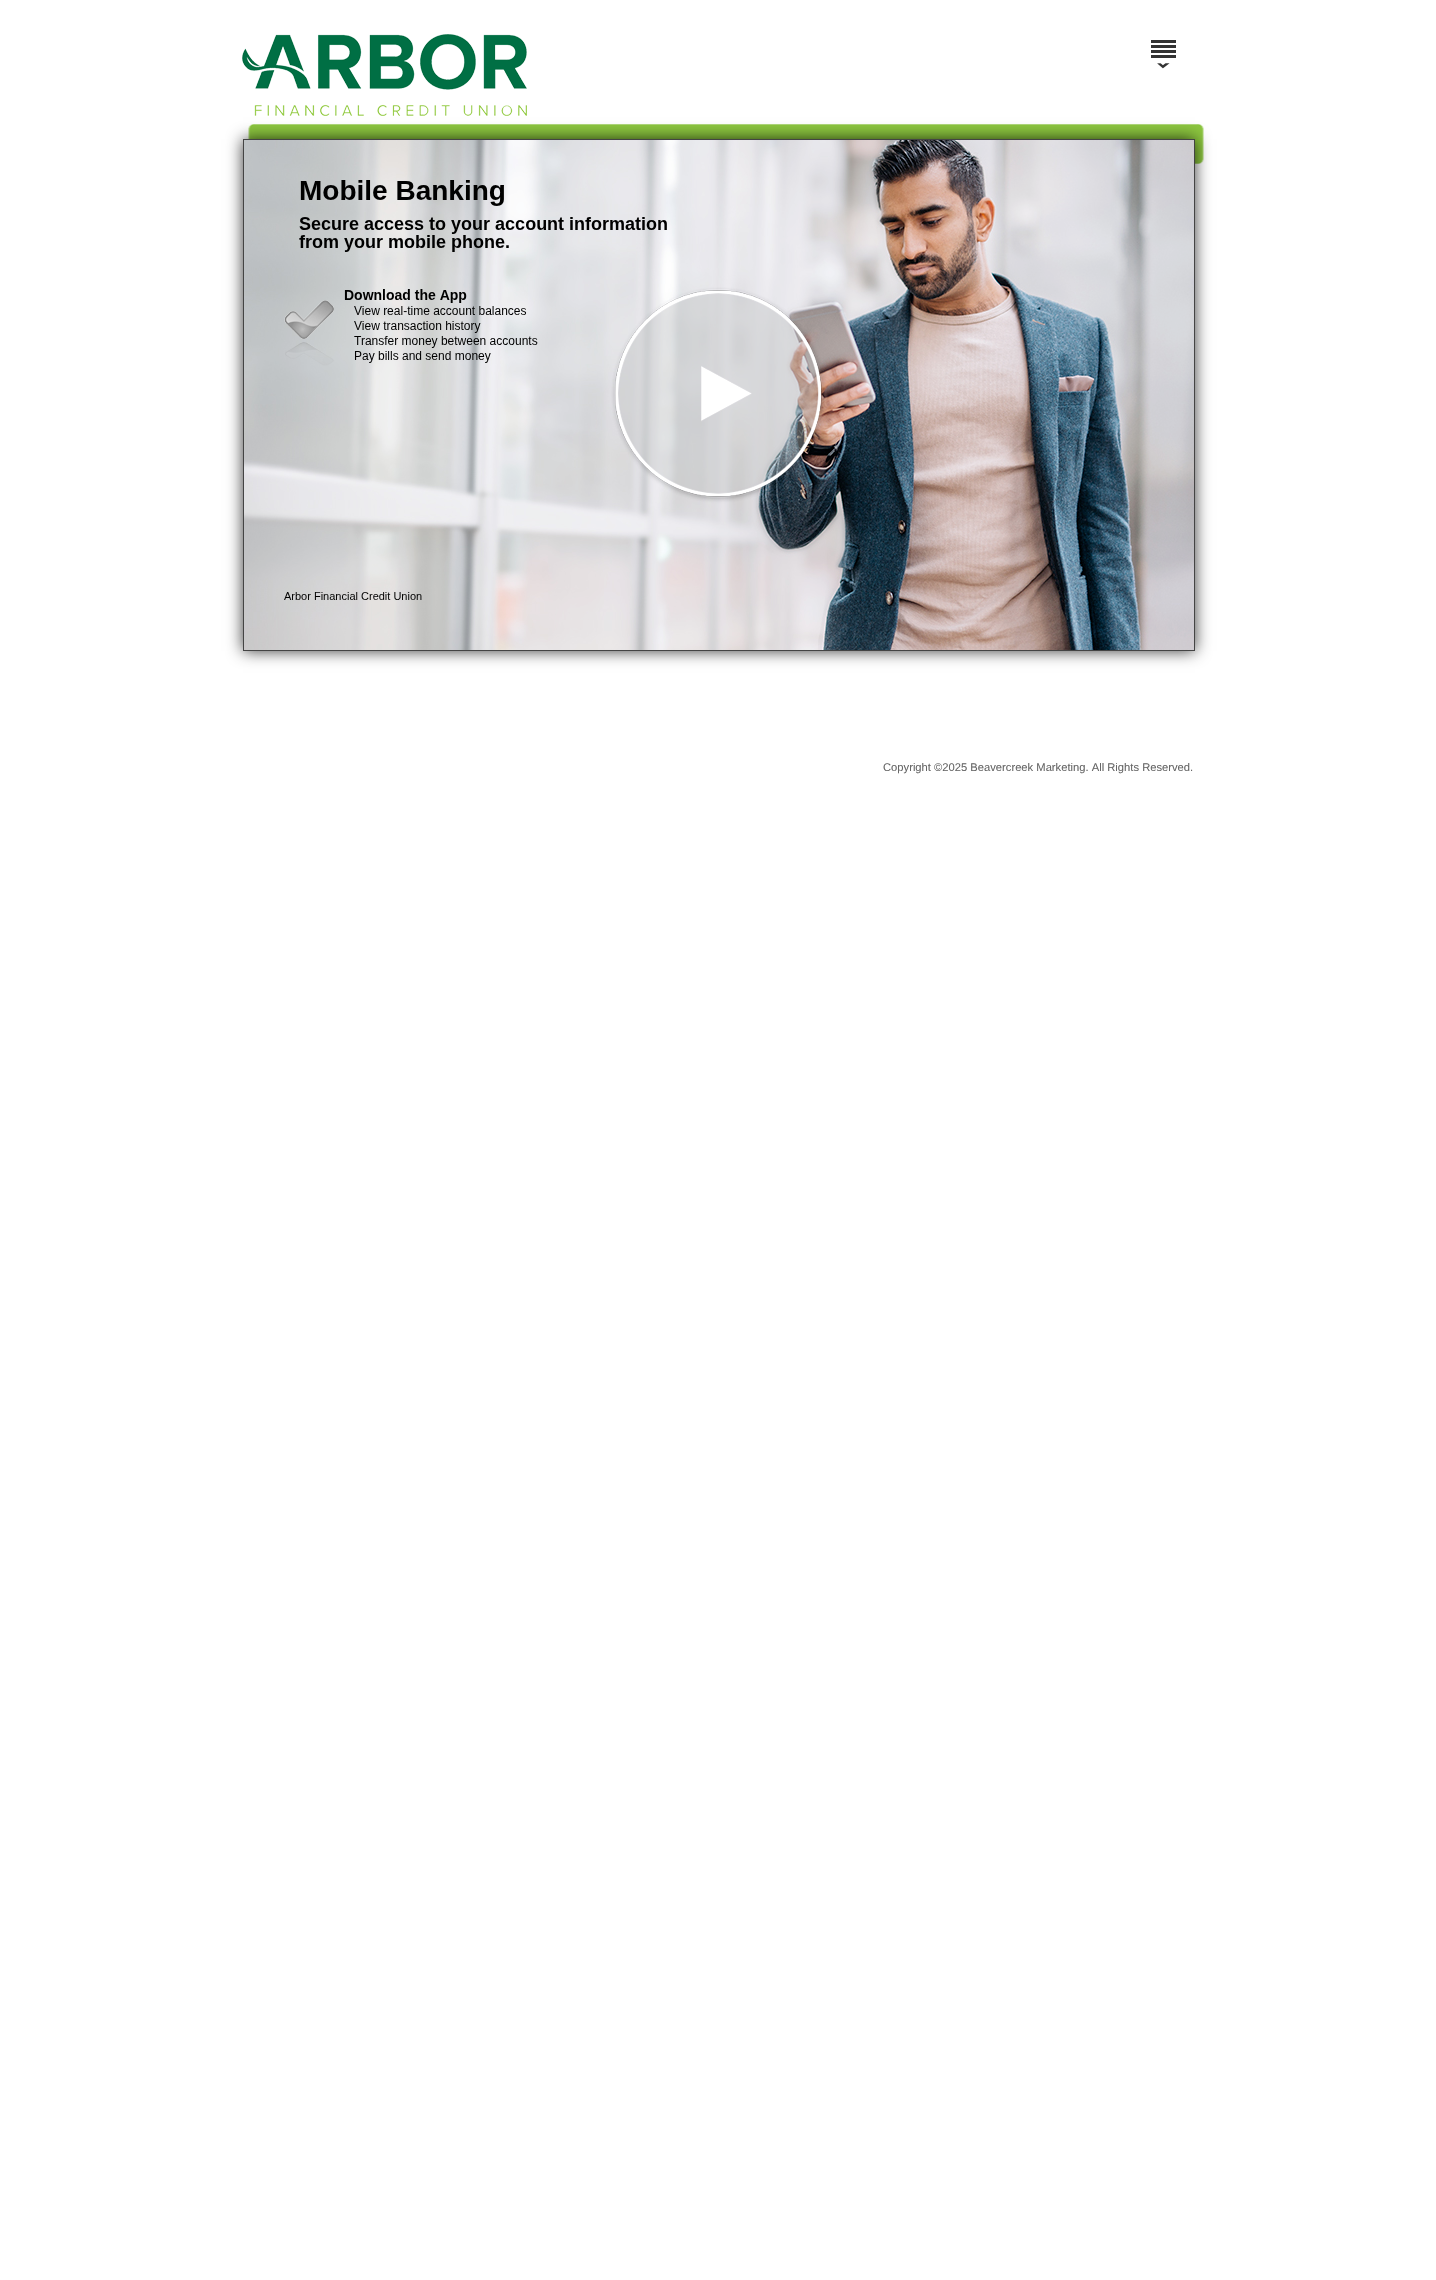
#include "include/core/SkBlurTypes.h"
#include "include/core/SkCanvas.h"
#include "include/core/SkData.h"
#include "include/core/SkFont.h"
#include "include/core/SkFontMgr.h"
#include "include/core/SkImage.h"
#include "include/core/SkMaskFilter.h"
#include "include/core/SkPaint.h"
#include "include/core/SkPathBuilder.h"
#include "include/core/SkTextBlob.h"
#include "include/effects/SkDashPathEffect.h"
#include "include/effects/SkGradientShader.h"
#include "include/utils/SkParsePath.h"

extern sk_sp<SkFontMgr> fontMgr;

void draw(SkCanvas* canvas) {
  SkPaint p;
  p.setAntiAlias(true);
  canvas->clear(SK_ColorWHITE);
  canvas->drawImageRect(SkImages::DeferredFromEncodedData(SkData::MakeFromFileName("images/1.png")), SkRect::MakeLTRB(248, 124, 1204, 164), SkSamplingOptions());
  canvas->drawImageRect(SkImages::DeferredFromEncodedData(SkData::MakeFromFileName("images/2.png")), SkRect::MakeLTRB(242, 34, 527, 116), SkSamplingOptions());
  canvas->drawImageRect(SkImages::DeferredFromEncodedData(SkData::MakeFromFileName("images/3.png")), SkRect::MakeLTRB(1151, 40, 1176, 69), SkSamplingOptions());
  p.setColor(SkColorSetARGB(196, 0, 0, 0));
  p.setMaskFilter(SkMaskFilter::MakeBlur(kNormal_SkBlurStyle, 7.5f));
  canvas->drawRect(SkRect::MakeLTRB(243, 139, 1195, 651), p);
  p.setMaskFilter(nullptr);
  p.setStyle(SkPaint::kStroke_Style);
  p.setStrokeWidth(1);
  p.setColor(SkColorSetRGB(68, 68, 68));
  canvas->drawRect(SkRect::MakeLTRB(243.5f, 139.5f, 1194.5f, 650.5f), p);
  canvas->drawImageRect(SkImages::DeferredFromEncodedData(SkData::MakeFromFileName("images/4.png")), SkRect::MakeLTRB(244, 140, 1194, 650), SkSamplingOptions());
  SkFont font1(fontMgr->matchFamilyStyle("Liberation Sans", SkFontStyle::Normal()), 11.2f);
  font1.setSubpixel(true);
  p.setStyle(SkPaint::kFill_Style);
  p.setColor(SkColorSetRGB(102, 102, 102));
  canvas->drawString("Copyright ©2025 Beavercreek Marketing. All Rights Reserved.", 883, 771, font1, p);
}
